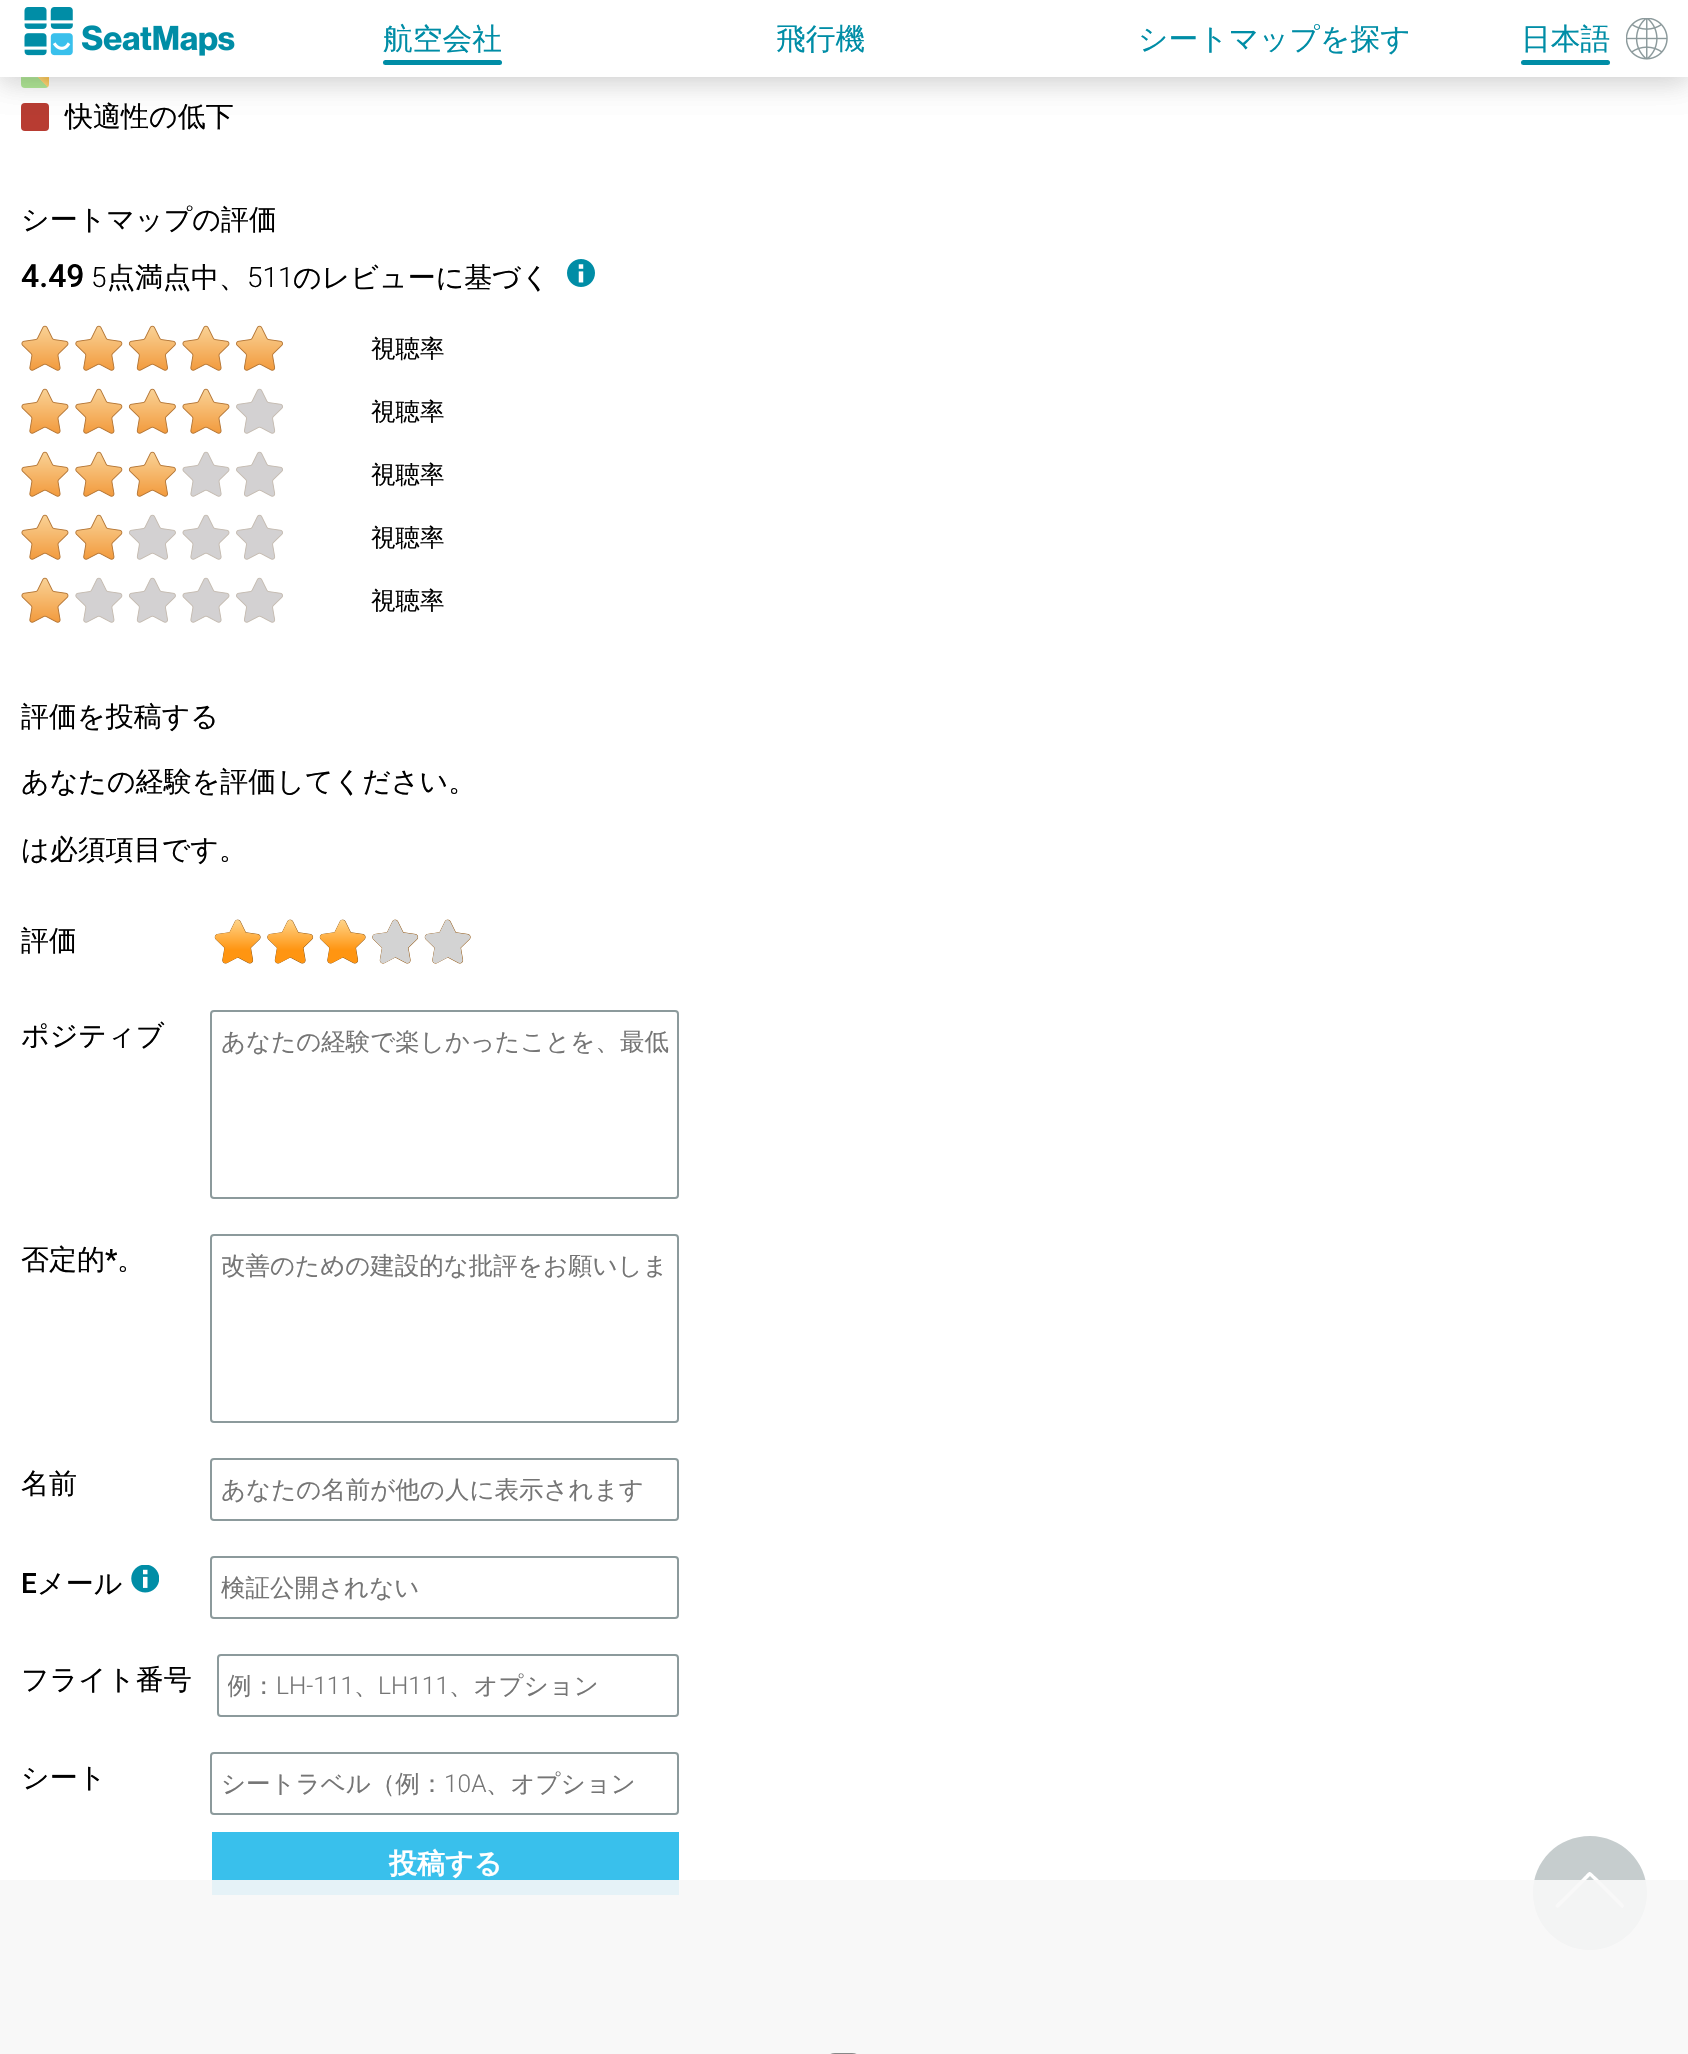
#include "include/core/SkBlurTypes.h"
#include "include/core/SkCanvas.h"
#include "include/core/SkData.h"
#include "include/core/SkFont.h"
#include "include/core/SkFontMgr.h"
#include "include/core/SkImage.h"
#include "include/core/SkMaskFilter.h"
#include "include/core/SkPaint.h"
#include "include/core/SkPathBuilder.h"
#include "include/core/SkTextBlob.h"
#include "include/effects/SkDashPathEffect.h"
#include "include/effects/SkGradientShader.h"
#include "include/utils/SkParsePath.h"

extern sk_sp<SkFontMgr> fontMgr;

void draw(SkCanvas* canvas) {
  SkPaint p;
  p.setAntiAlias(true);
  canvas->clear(SK_ColorWHITE);
  {
    const SkColor colors[] = {SkColorSetRGB(255, 165, 0), SkColorSetRGB(254, 215, 122), SkColorSetRGB(177, 232, 151), SkColorSetRGB(177, 232, 151)};
    const float stops[] = {0, 0.51f, 0.51f, 1};
    const SkPoint ends[] = {{49, 60}, {21, 88}};
    p.setShader(SkGradientShader::MakeLinear(ends, colors, stops, 4, SkTileMode::kClamp));
    p.setAlpha(255);
  }
  canvas->drawRoundRect(SkRect::MakeLTRB(21, 60, 49, 88), 4, 4, p);
  p.setShader(nullptr);
  p.setColor(SkColorSetRGB(184, 60, 50));
  canvas->drawRoundRect(SkRect::MakeLTRB(21, 103, 49, 131), 4, 4, p);
  p.setColor(SkColorSetARGB(26, 0, 0, 0));
  p.setMaskFilter(SkMaskFilter::MakeBlur(kNormal_SkBlurStyle, 14));
  canvas->drawRect(SkRect::MakeLTRB(0, 5, 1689, 82), p);
  p.setMaskFilter(nullptr);
  p.setMaskFilter(SkMaskFilter::MakeBlur(kNormal_SkBlurStyle, 14));
  canvas->drawRect(SkRect::MakeLTRB(0, 5, 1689, 82), p);
  p.setMaskFilter(nullptr);
  p.setColor(SK_ColorWHITE);
  canvas->drawRect(SkRect::MakeLTRB(0, 0, 1688, 77), p);
  p.setColor(SkColorSetARGB(13, 255, 255, 255));
  canvas->drawRect(SkRect::MakeLTRB(21, 77, 49, 78), p);
  canvas->drawImageRect(SkImages::DeferredFromEncodedData(SkData::MakeFromFileName("images/1.png")), SkRect::MakeLTRB(24, 7, 235, 56), SkSamplingOptions());
  p.setColor(SkColorSetRGB(0, 141, 166));
  canvas->drawRoundRect(SkRect::MakeLTRB(383, 60, 502, 65), 2.5f, 2.5f, p);
  canvas->drawRoundRect(SkRect::MakeLTRB(1521, 60, 1610, 65), 2.5f, 2.5f, p);
  canvas->drawImageRect(SkImages::DeferredFromEncodedData(SkData::MakeFromFileName("images/2.png")), SkRect::MakeLTRB(1626, 18, 1668, 60), SkSamplingOptions());
  canvas->drawImageRect(SkImages::DeferredFromEncodedData(SkData::MakeFromFileName("images/3.png")), SkRect::MakeLTRB(567, 259, 595, 287), SkSamplingOptions());
  canvas->drawImageRect(SkImages::DeferredFromEncodedData(SkData::MakeFromFileName("images/4.png")), SkRect::MakeLTRB(21, 325, 283, 371), SkSamplingOptions());
  canvas->drawImageRect(SkImages::DeferredFromEncodedData(SkData::MakeFromFileName("images/5.png")), SkRect::MakeLTRB(21, 388, 283, 434), SkSamplingOptions());
  canvas->drawImageRect(SkImages::DeferredFromEncodedData(SkData::MakeFromFileName("images/6.png")), SkRect::MakeLTRB(21, 451, 283, 497), SkSamplingOptions());
  canvas->drawImageRect(SkImages::DeferredFromEncodedData(SkData::MakeFromFileName("images/7.png")), SkRect::MakeLTRB(21, 514, 283, 560), SkSamplingOptions());
  canvas->drawImageRect(SkImages::DeferredFromEncodedData(SkData::MakeFromFileName("images/8.png")), SkRect::MakeLTRB(21, 577, 283, 623), SkSamplingOptions());
  canvas->drawImageRect(SkImages::DeferredFromEncodedData(SkData::MakeFromFileName("images/9.png")), SkRect::MakeLTRB(214, 919, 261, 964), SkSamplingOptions());
  canvas->drawImageRect(SkImages::DeferredFromEncodedData(SkData::MakeFromFileName("images/10.png")), SkRect::MakeLTRB(267, 919, 314, 964), SkSamplingOptions());
  canvas->drawImageRect(SkImages::DeferredFromEncodedData(SkData::MakeFromFileName("images/9.png")), SkRect::MakeLTRB(319, 919, 366, 964), SkSamplingOptions());
  canvas->drawImageRect(SkImages::DeferredFromEncodedData(SkData::MakeFromFileName("images/11.png")), SkRect::MakeLTRB(372, 919, 419, 964), SkSamplingOptions());
  canvas->drawImageRect(SkImages::DeferredFromEncodedData(SkData::MakeFromFileName("images/12.png")), SkRect::MakeLTRB(424, 919, 471, 964), SkSamplingOptions());
  p.setStyle(SkPaint::kStroke_Style);
  p.setStrokeWidth(2);
  p.setColor(SkColorSetRGB(140, 154, 156));
  canvas->drawRoundRect(SkRect::MakeLTRB(211, 1011, 678, 1198), 3, 3, p);
  canvas->drawRoundRect(SkRect::MakeLTRB(211, 1235, 678, 1422), 3, 3, p);
  canvas->drawRoundRect(SkRect::MakeLTRB(211, 1459, 678, 1520), 3, 3, p);
  canvas->drawImageRect(SkImages::DeferredFromEncodedData(SkData::MakeFromFileName("images/13.png")), SkRect::MakeLTRB(131, 1565, 159, 1593), SkSamplingOptions());
  canvas->drawRoundRect(SkRect::MakeLTRB(211, 1557, 678, 1618), 3, 3, p);
  canvas->drawRoundRect(SkRect::MakeLTRB(218, 1655, 678, 1716), 3, 3, p);
  canvas->drawRoundRect(SkRect::MakeLTRB(211, 1753, 678, 1814), 3, 3, p);
  p.setStyle(SkPaint::kFill_Style);
  p.setColor(SkColorSetRGB(57, 192, 236));
  canvas->drawRect(SkRect::MakeLTRB(212, 1832, 679, 1895), p);
  p.setColor(SkColorSetRGB(198, 205, 206));
  canvas->drawPath(SkPathBuilder(SkPathFillType::kEvenOdd).moveTo(1533, 1893).cubicTo(1533, 1861, 1558, 1836, 1590, 1836).cubicTo(1621, 1836, 1647, 1861, 1647, 1893).cubicTo(1647, 1924, 1621, 1950, 1590, 1950).cubicTo(1558, 1950, 1533, 1924, 1533, 1893).close().moveTo(1556, 1907).cubicTo(1554, 1905, 1559, 1902, 1562, 1899).lineTo(1583, 1878).cubicTo(1591, 1870, 1588, 1870, 1597, 1878).lineTo(1623, 1904).cubicTo(1625, 1906, 1623, 1908, 1622, 1908).lineTo(1590, 1876).lineTo(1559, 1907).cubicTo(1558, 1908, 1557, 1908, 1556, 1907).close().detach(), p);
  p.setColor(SkColorSetARGB(230, 247, 247, 247));
  canvas->drawRect(SkRect::MakeLTRB(0, 1880, 1688, 2054), p);
  p.setStyle(SkPaint::kStroke_Style);
  p.setColor(SkColorSetRGB(136, 136, 136));
  canvas->drawRoundRect(SkRect::MakeLTRB(825, 2054, 862, 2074), 18, 18, p);
  SkFont font1(fontMgr->matchFamilyStyle("WenQuanYi Zen Hei", SkFontStyle(500, SkFontStyle::kNormal_Width, SkFontStyle::kUpright_Slant)), 29.75f);
  font1.setSubpixel(true);
  p.setStyle(SkPaint::kFill_Style);
  p.setColor(SkColorSetRGB(0, 141, 166));
  canvas->drawString("航空会社", 383, 49, font1, p);
  canvas->drawString("飛行機", 776, 49, font1, p);
  canvas->drawString("シートマップを探す", 1138, 49, font1, p);
  canvas->drawString("日本語", 1521, 49, font1, p);
  SkFont font2(fontMgr->matchFamilyStyle("WenQuanYi Zen Hei", SkFontStyle(500, SkFontStyle::kNormal_Width, SkFontStyle::kUpright_Slant)), 28);
  font2.setSubpixel(true);
  p.setColor(SK_ColorBLACK);
  canvas->drawString("快適性の低下", 65, 126, font2, p);
  canvas->drawString("シートマップの評価", 21, 229, font2, p);
  SkFont font3(fontMgr->matchFamilyStyle("Roboto", SkFontStyle(500, SkFontStyle::kNormal_Width, SkFontStyle::kUpright_Slant)), 32);
  font3.setSubpixel(true);
  canvas->drawString("4.49", 21, 287, font3, p);
  SkFont font4(fontMgr->matchFamilyStyle("Roboto", SkFontStyle(300, SkFontStyle::kNormal_Width, SkFontStyle::kUpright_Slant)), 28);
  font4.setSubpixel(true);
  canvas->drawString("5", 91, 287, font4, p);
  canvas->drawString("点満点中、", 107, 287, font2, p);
  canvas->drawString("511", 247, 287, font4, p);
  canvas->drawString("のレビューに基づく", 293, 287, font2, p);
  SkFont font5(fontMgr->matchFamilyStyle("WenQuanYi Zen Hei", SkFontStyle(500, SkFontStyle::kNormal_Width, SkFontStyle::kUpright_Slant)), 24.5f);
  font5.setSubpixel(true);
  canvas->drawString("視聴率", 371, 357, font5, p);
  canvas->drawString("視聴率", 371, 420, font5, p);
  canvas->drawString("視聴率", 371, 483, font5, p);
  canvas->drawString("視聴率", 371, 546, font5, p);
  canvas->drawString("視聴率", 371, 609, font5, p);
  canvas->drawString("評価を投稿する", 21, 726, font2, p);
  canvas->drawString("あなたの経験を評価してください。", 21, 791, font2, p);
  canvas->drawString("は必須項目です。", 21, 859, font2, p);
  canvas->drawString("評価", 21, 950, font2, p);
  canvas->drawString("ポジティブ", 21, 1045, font2, p);
  p.setColor(SkColorSetRGB(117, 117, 117));
  canvas->drawString("あなたの経験で楽しかったことを、最低", 221, 1050, font5, p);
  p.setColor(SK_ColorBLACK);
  canvas->drawString("否定的", 21, 1269, font2, p);
  SkFont font6(fontMgr->matchFamilyStyle("Roboto", SkFontStyle(500, SkFontStyle::kNormal_Width, SkFontStyle::kUpright_Slant)), 28);
  font6.setSubpixel(true);
  canvas->drawString("*", 105, 1269, font6, p);
  canvas->drawString("。", 117, 1269, font2, p);
  p.setColor(SkColorSetRGB(117, 117, 117));
  canvas->drawString("改善のための建設的な批評をお願いしま", 221, 1274, font5, p);
  p.setColor(SK_ColorBLACK);
  canvas->drawString("名前", 21, 1493, font2, p);
  p.setColor(SkColorSetRGB(117, 117, 117));
  canvas->drawString("あなたの名前が他の人に表示されます", 221, 1498, font5, p);
  p.setColor(SK_ColorBLACK);
  canvas->drawString("E", 21, 1593, font6, p);
  canvas->drawString("メール", 37, 1593, font2, p);
  p.setColor(SkColorSetRGB(117, 117, 117));
  canvas->drawString("検証公開されない", 221, 1596, font5, p);
  p.setColor(SK_ColorBLACK);
  canvas->drawString("フライト番号", 21, 1689, font2, p);
  canvas->save();
  canvas->clipRect(SkRect::MakeLTRB(228, 1671, 669, 1703));
  p.setColor(SkColorSetRGB(117, 117, 117));
  canvas->drawString("例：", 227, 1694, font5, p);
  canvas->restore();
  SkFont font7(fontMgr->matchFamilyStyle("Roboto", SkFontStyle(300, SkFontStyle::kNormal_Width, SkFontStyle::kUpright_Slant)), 24.5f);
  font7.setSubpixel(true);
  canvas->drawString("LH-111", 276, 1694, font7, p);
  canvas->drawString("LH111", 378, 1694, font7, p);
  canvas->drawString("、オプション", 449, 1694, font5, p);
  canvas->drawString("、", 354, 1694, font5, p);
  p.setColor(SK_ColorBLACK);
  canvas->drawString("シート", 21, 1787, font2, p);
  p.setColor(SkColorSetRGB(117, 117, 117));
  canvas->drawString("シートラベル（例：", 221, 1792, font5, p);
  canvas->drawString("10A", 444, 1792, font7, p);
  canvas->drawString("、オプション", 486, 1792, font5, p);
  SkFont font8(fontMgr->matchFamilyStyle("WenQuanYi Zen Hei", SkFontStyle::Bold()), 28);
  font8.setSubpixel(true);
  p.setColor(SK_ColorWHITE);
  canvas->drawString("投稿する", 389, 1873, font8, p);
}
